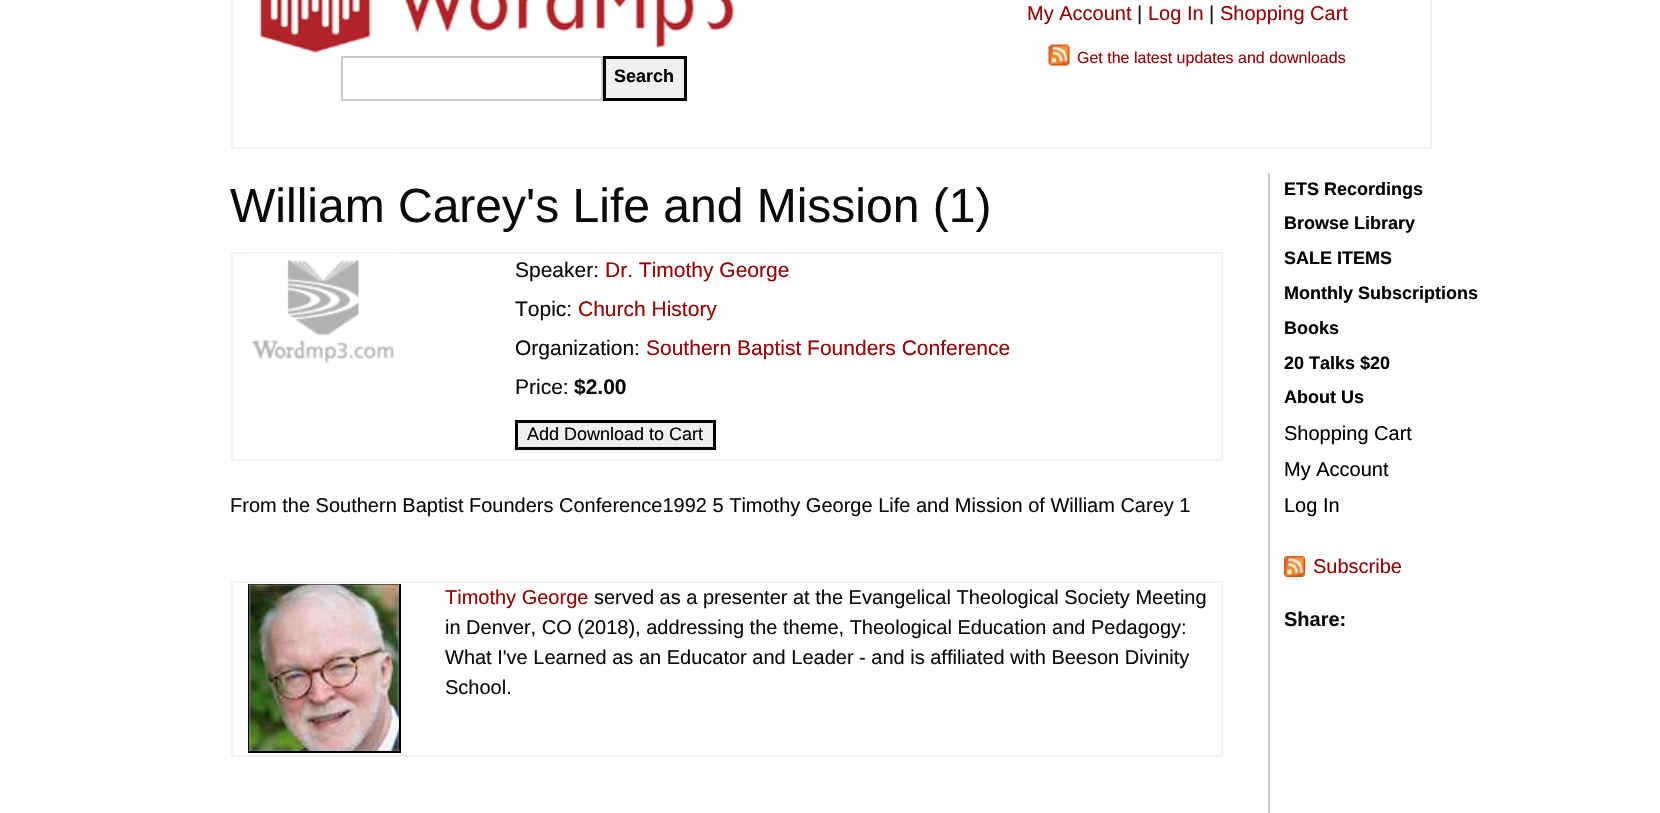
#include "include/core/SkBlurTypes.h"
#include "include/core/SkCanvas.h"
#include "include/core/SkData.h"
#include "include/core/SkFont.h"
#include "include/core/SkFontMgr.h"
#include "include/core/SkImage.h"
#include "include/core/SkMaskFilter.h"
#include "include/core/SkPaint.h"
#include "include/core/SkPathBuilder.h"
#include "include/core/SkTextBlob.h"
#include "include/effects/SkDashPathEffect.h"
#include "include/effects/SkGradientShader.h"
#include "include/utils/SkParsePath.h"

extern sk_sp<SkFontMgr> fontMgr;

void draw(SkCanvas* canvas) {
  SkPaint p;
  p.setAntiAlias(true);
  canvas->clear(SK_ColorWHITE);
  p.setColor(SkColorSetRGB(241, 241, 241));
  canvas->drawRect(SkRect::MakeLTRB(1430, 0, 1432, 149), p);
  canvas->drawRect(SkRect::MakeLTRB(231, 147, 1431, 149), p);
  canvas->drawRect(SkRect::MakeLTRB(231, 0, 233, 149), p);
  canvas->drawImageRect(SkImages::DeferredFromEncodedData(SkData::MakeFromFileName("images/1.png")), SkRect::MakeLTRB(1048, 44, 1070, 66), SkSamplingOptions());
  canvas->drawImageRect(SkImages::DeferredFromEncodedData(SkData::MakeFromFileName("images/2.png")), SkRect::MakeLTRB(259, 0, 734, 53), SkSamplingOptions());
  p.setStyle(SkPaint::kStroke_Style);
  p.setStrokeWidth(2);
  p.setColor(SkColorSetRGB(202, 202, 202));
  canvas->drawRect(SkRect::MakeLTRB(342, 57, 602, 100), p);
  p.setStyle(SkPaint::kFill_Style);
  p.setColor(SkColorSetRGB(239, 239, 239));
  canvas->drawRect(SkRect::MakeLTRB(604.5f, 57.5f, 685.5f, 99.5f), p);
  p.setStyle(SkPaint::kStroke_Style);
  p.setStrokeWidth(3);
  p.setColor(SK_ColorBLACK);
  canvas->drawRect(SkRect::MakeLTRB(604.5f, 57.5f, 685.5f, 99.5f), p);
  p.setStyle(SkPaint::kFill_Style);
  p.setColor(SkColorSetRGB(241, 241, 241));
  canvas->drawRect(SkRect::MakeLTRB(231, 252, 1223, 254), p);
  canvas->drawRect(SkRect::MakeLTRB(1221, 252, 1223, 461), p);
  canvas->drawRect(SkRect::MakeLTRB(231, 459, 1223, 461), p);
  canvas->drawRect(SkRect::MakeLTRB(231, 252, 233, 461), p);
  canvas->drawImageRect(SkImages::DeferredFromEncodedData(SkData::MakeFromFileName("images/3.png")), SkRect::MakeLTRB(247, 253, 398, 363), SkSamplingOptions());
  p.setColor(SkColorSetRGB(239, 239, 239));
  canvas->drawRect(SkRect::MakeLTRB(516.5f, 421.5f, 714.5f, 448.5f), p);
  p.setStyle(SkPaint::kStroke_Style);
  p.setColor(SK_ColorBLACK);
  canvas->drawRect(SkRect::MakeLTRB(516.5f, 421.5f, 714.5f, 448.5f), p);
  p.setStyle(SkPaint::kFill_Style);
  p.setColor(SkColorSetRGB(241, 241, 241));
  canvas->drawRect(SkRect::MakeLTRB(231, 581, 1223, 583), p);
  canvas->drawRect(SkRect::MakeLTRB(1221, 581, 1223, 756), p);
  canvas->drawRect(SkRect::MakeLTRB(231, 755, 1223, 757), p);
  canvas->drawRect(SkRect::MakeLTRB(231, 581, 233, 756), p);
  p.setStyle(SkPaint::kStroke_Style);
  p.setStrokeWidth(2);
  p.setColor(SK_ColorBLACK);
  canvas->drawRect(SkRect::MakeLTRB(249, 585, 400, 752), p);
  canvas->drawImageRect(SkImages::DeferredFromEncodedData(SkData::MakeFromFileName("images/4.png")), SkRect::MakeLTRB(249, 584, 399, 751), SkSamplingOptions());
  p.setStyle(SkPaint::kFill_Style);
  p.setColor(SkColorSetRGB(204, 204, 204));
  canvas->drawRect(SkRect::MakeLTRB(1268, 173, 1270, 813), p);
  canvas->drawImageRect(SkImages::DeferredFromEncodedData(SkData::MakeFromFileName("images/5.png")), SkRect::MakeLTRB(1284, 556, 1305, 577), SkSamplingOptions());
  SkFont font1(fontMgr->matchFamilyStyle("Liberation Sans", SkFontStyle::Normal()), 20);
  font1.setSubpixel(true);
  p.setColor(SkColorSetRGB(153, 0, 0));
  canvas->drawString("My Account", 1027, 20, font1, p);
  p.setColor(SkColorSetRGB(10, 10, 10));
  canvas->drawString("|", 1137, 20, font1, p);
  p.setColor(SkColorSetRGB(153, 0, 0));
  canvas->drawString("Log In", 1148, 20, font1, p);
  p.setColor(SkColorSetRGB(10, 10, 10));
  canvas->drawString("|", 1209, 20, font1, p);
  p.setColor(SkColorSetRGB(153, 0, 0));
  canvas->drawString("Shopping Cart", 1220, 20, font1, p);
  SkFont font2(fontMgr->matchFamilyStyle("Liberation Sans", SkFontStyle::Normal()), 16);
  font2.setSubpixel(true);
  canvas->drawString("Get the latest updates and downloads", 1077, 63, font2, p);
  SkFont font3(fontMgr->matchFamilyStyle("Liberation Sans", SkFontStyle::Bold()), 18);
  font3.setSubpixel(true);
  p.setColor(SK_ColorBLACK);
  canvas->drawString("Search", 614, 82, font3, p);
  SkFont font4(fontMgr->matchFamilyStyle("Liberation Sans", SkFontStyle::Normal()), 48);
  font4.setSubpixel(true);
  p.setColor(SkColorSetRGB(10, 10, 10));
  canvas->drawString("William Carey's Life and Mission (1)", 230, 222, font4, p);
  SkFont font5(fontMgr->matchFamilyStyle("Liberation Sans", SkFontStyle::Normal()), 21);
  font5.setSubpixel(true);
  canvas->drawString("Speaker:", 515, 277, font5, p);
  p.setColor(SkColorSetRGB(153, 0, 0));
  canvas->drawString("Dr. Timothy George", 605, 277, font5, p);
  p.setColor(SkColorSetRGB(10, 10, 10));
  canvas->drawString("Topic:", 515, 316, font5, p);
  p.setColor(SkColorSetRGB(153, 0, 0));
  canvas->drawString("Church History", 578, 316, font5, p);
  p.setColor(SkColorSetRGB(10, 10, 10));
  canvas->drawString("Organization:", 515, 355, font5, p);
  p.setColor(SkColorSetRGB(153, 0, 0));
  canvas->drawString("Southern Baptist Founders Conference", 646, 355, font5, p);
  p.setColor(SkColorSetRGB(10, 10, 10));
  canvas->drawString("Price:", 515, 394, font5, p);
  SkFont font6(fontMgr->matchFamilyStyle("Liberation Sans", SkFontStyle::Bold()), 21);
  font6.setSubpixel(true);
  canvas->drawString("$2.00", 574, 394, font6, p);
  SkFont font7(fontMgr->matchFamilyStyle("Liberation Sans", SkFontStyle::Normal()), 18);
  font7.setSubpixel(true);
  p.setColor(SK_ColorBLACK);
  canvas->drawString("Add Download to Cart", 527, 440, font7, p);
  p.setColor(SkColorSetRGB(10, 10, 10));
  canvas->drawString("From the Southern Baptist Founders Conference1992 5 Timothy George Life and Mission of William Carey 1", 230, 512, font1, p);
  p.setColor(SkColorSetRGB(153, 0, 0));
  canvas->drawString("Timothy George", 445, 604, font1, p);
  p.setColor(SkColorSetRGB(10, 10, 10));
  canvas->drawString("served as a presenter at the Evangelical Theological Society Meeting", 594, 604, font1, p);
  canvas->drawString("in Denver, CO (2018), addressing the theme, Theological Education and Pedagogy:", 445, 634, font1, p);
  canvas->drawString("What I've Learned as an Educator and Leader - and is affiliated with Beeson Divinity", 445, 664, font1, p);
  canvas->drawString("School.", 445, 694, font1, p);
  p.setColor(SK_ColorBLACK);
  canvas->drawString("ETS Recordings", 1284, 195, font3, p);
  canvas->drawString("Browse Library", 1284, 229, font3, p);
  canvas->drawString("SALE ITEMS", 1284, 264, font3, p);
  canvas->drawString("Monthly Subscriptions", 1284, 299, font3, p);
  canvas->drawString("Books", 1284, 334, font3, p);
  canvas->drawString("20 Talks $20", 1284, 369, font3, p);
  canvas->drawString("About Us", 1284, 403, font3, p);
  canvas->drawString("Shopping Cart", 1284, 440, font1, p);
  canvas->drawString("My Account", 1284, 476, font1, p);
  canvas->drawString("Log In", 1284, 512, font1, p);
  p.setColor(SkColorSetRGB(153, 0, 0));
  canvas->drawString("Subscribe", 1313, 573, font1, p);
  SkFont font8(fontMgr->matchFamilyStyle("Liberation Sans", SkFontStyle::Bold()), 20);
  font8.setSubpixel(true);
  p.setColor(SkColorSetRGB(10, 10, 10));
  canvas->drawString("Share:", 1284, 626, font8, p);
}
